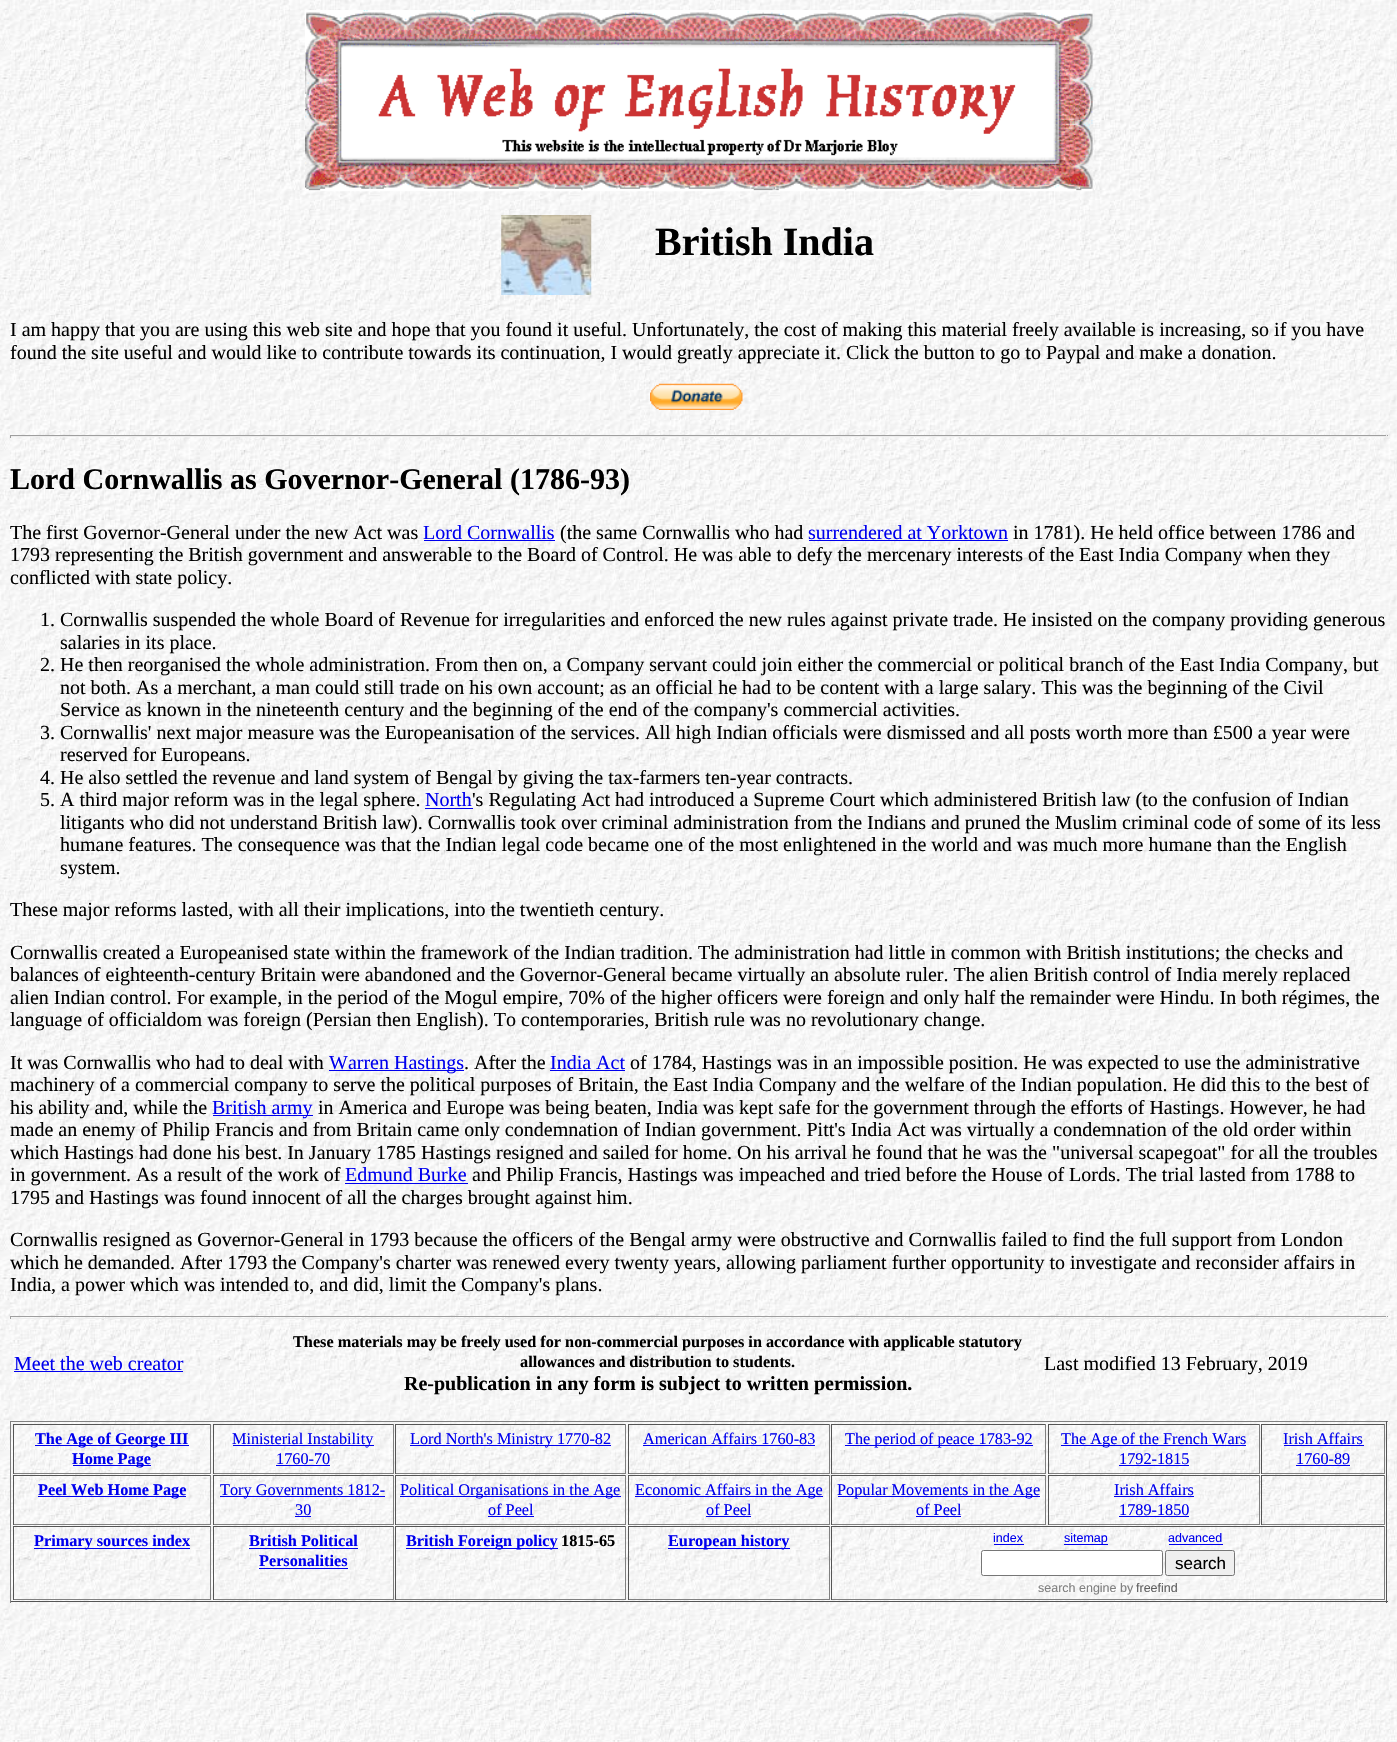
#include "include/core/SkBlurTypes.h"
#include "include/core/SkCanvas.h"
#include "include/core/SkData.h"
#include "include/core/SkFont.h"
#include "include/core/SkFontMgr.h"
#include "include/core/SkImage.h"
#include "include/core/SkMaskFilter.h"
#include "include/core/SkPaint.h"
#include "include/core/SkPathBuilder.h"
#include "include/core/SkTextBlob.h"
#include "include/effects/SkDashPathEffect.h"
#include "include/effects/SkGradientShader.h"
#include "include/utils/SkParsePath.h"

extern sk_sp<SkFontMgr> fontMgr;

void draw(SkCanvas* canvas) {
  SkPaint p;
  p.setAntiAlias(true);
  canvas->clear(SK_ColorWHITE);
  canvas->drawImageRect(SkImages::DeferredFromEncodedData(SkData::MakeFromFileName("images/1.png")), SkRect::MakeLTRB(0, 0, 1397, 1742), SkSamplingOptions());
  canvas->drawImageRect(SkImages::DeferredFromEncodedData(SkData::MakeFromFileName("images/2.png")), SkRect::MakeLTRB(305, 10, 1093, 192), SkSamplingOptions());
  canvas->drawImageRect(SkImages::DeferredFromEncodedData(SkData::MakeFromFileName("images/3.png")), SkRect::MakeLTRB(501, 215, 592, 295), SkSamplingOptions());
  canvas->drawImageRect(SkImages::DeferredFromEncodedData(SkData::MakeFromFileName("images/4.png")), SkRect::MakeLTRB(650, 383, 743, 410), SkSamplingOptions());
  p.setColor(SkColorSetRGB(159, 159, 159));
  canvas->drawRect(SkRect::MakeLTRB(10, 435, 1388, 436), p);
  p.setColor(SkColorSetRGB(238, 238, 238));
  canvas->drawRect(SkRect::MakeLTRB(1386, 435, 1387, 438), p);
  canvas->drawRect(SkRect::MakeLTRB(10, 436, 1388, 437), p);
  p.setColor(SkColorSetRGB(159, 159, 159));
  canvas->drawRect(SkRect::MakeLTRB(10, 435, 11, 438), p);
  p.setColor(SkColorSetRGB(0, 0, 238));
  canvas->drawRect(SkRect::MakeLTRB(424, 540, 555, 541), p);
  canvas->drawRect(SkRect::MakeLTRB(809, 540, 1008, 541), p);
  canvas->drawRect(SkRect::MakeLTRB(425, 808, 473, 809), p);
  canvas->drawRect(SkRect::MakeLTRB(329, 1070, 464, 1071), p);
  canvas->drawRect(SkRect::MakeLTRB(550, 1070, 625, 1071), p);
  canvas->drawRect(SkRect::MakeLTRB(213, 1115, 313, 1116), p);
  canvas->drawRect(SkRect::MakeLTRB(345, 1183, 468, 1184), p);
  p.setColor(SkColorSetRGB(159, 159, 159));
  canvas->drawRect(SkRect::MakeLTRB(10, 1316, 1388, 1317), p);
  p.setColor(SkColorSetRGB(238, 238, 238));
  canvas->drawRect(SkRect::MakeLTRB(1386, 1316, 1387, 1319), p);
  canvas->drawRect(SkRect::MakeLTRB(10, 1318, 1388, 1319), p);
  p.setColor(SkColorSetRGB(159, 159, 159));
  canvas->drawRect(SkRect::MakeLTRB(10, 1316, 11, 1319), p);
  p.setColor(SkColorSetRGB(0, 0, 238));
  canvas->drawRect(SkRect::MakeLTRB(14, 1371, 183, 1372), p);
  p.setColor(SkColorSetRGB(128, 128, 128));
  canvas->drawRect(SkRect::MakeLTRB(10, 1421, 1388, 1422), p);
  p.setColor(SkColorSetRGB(85, 85, 85));
  canvas->drawRect(SkRect::MakeLTRB(1386, 1421, 1387, 1603), p);
  canvas->drawRect(SkRect::MakeLTRB(10, 1601, 1388, 1602), p);
  p.setColor(SkColorSetRGB(128, 128, 128));
  canvas->drawRect(SkRect::MakeLTRB(10, 1421, 11, 1603), p);
  p.setColor(SkColorSetRGB(85, 85, 85));
  canvas->drawRect(SkRect::MakeLTRB(13, 1424, 211, 1425), p);
  p.setColor(SkColorSetRGB(128, 128, 128));
  canvas->drawRect(SkRect::MakeLTRB(210, 1424, 211, 1474), p);
  canvas->drawRect(SkRect::MakeLTRB(13, 1473, 211, 1474), p);
  p.setColor(SkColorSetRGB(85, 85, 85));
  canvas->drawRect(SkRect::MakeLTRB(13, 1424, 14, 1474), p);
  p.setColor(SkColorSetRGB(0, 0, 238));
  canvas->drawRect(SkRect::MakeLTRB(35, 1445, 189, 1446), p);
  canvas->drawRect(SkRect::MakeLTRB(73, 1465, 151, 1466), p);
  p.setColor(SkColorSetRGB(85, 85, 85));
  canvas->drawRect(SkRect::MakeLTRB(213, 1424, 394, 1425), p);
  p.setColor(SkColorSetRGB(128, 128, 128));
  canvas->drawRect(SkRect::MakeLTRB(393, 1424, 394, 1474), p);
  canvas->drawRect(SkRect::MakeLTRB(213, 1473, 394, 1474), p);
  p.setColor(SkColorSetRGB(85, 85, 85));
  canvas->drawRect(SkRect::MakeLTRB(213, 1424, 214, 1474), p);
  p.setColor(SkColorSetRGB(0, 0, 238));
  canvas->drawRect(SkRect::MakeLTRB(233, 1445, 374, 1446), p);
  canvas->drawRect(SkRect::MakeLTRB(276, 1465, 330, 1466), p);
  p.setColor(SkColorSetRGB(85, 85, 85));
  canvas->drawRect(SkRect::MakeLTRB(395, 1424, 626, 1425), p);
  p.setColor(SkColorSetRGB(128, 128, 128));
  canvas->drawRect(SkRect::MakeLTRB(625, 1424, 626, 1474), p);
  canvas->drawRect(SkRect::MakeLTRB(395, 1473, 626, 1474), p);
  p.setColor(SkColorSetRGB(85, 85, 85));
  canvas->drawRect(SkRect::MakeLTRB(395, 1424, 396, 1474), p);
  p.setColor(SkColorSetRGB(0, 0, 238));
  canvas->drawRect(SkRect::MakeLTRB(410, 1445, 611, 1446), p);
  p.setColor(SkColorSetRGB(85, 85, 85));
  canvas->drawRect(SkRect::MakeLTRB(628, 1424, 830, 1425), p);
  p.setColor(SkColorSetRGB(128, 128, 128));
  canvas->drawRect(SkRect::MakeLTRB(829, 1424, 830, 1474), p);
  canvas->drawRect(SkRect::MakeLTRB(628, 1473, 830, 1474), p);
  p.setColor(SkColorSetRGB(85, 85, 85));
  canvas->drawRect(SkRect::MakeLTRB(628, 1424, 629, 1474), p);
  p.setColor(SkColorSetRGB(0, 0, 238));
  canvas->drawRect(SkRect::MakeLTRB(643, 1445, 815, 1446), p);
  p.setColor(SkColorSetRGB(85, 85, 85));
  canvas->drawRect(SkRect::MakeLTRB(831, 1424, 1046, 1425), p);
  p.setColor(SkColorSetRGB(128, 128, 128));
  canvas->drawRect(SkRect::MakeLTRB(1045, 1424, 1046, 1474), p);
  canvas->drawRect(SkRect::MakeLTRB(831, 1473, 1046, 1474), p);
  p.setColor(SkColorSetRGB(85, 85, 85));
  canvas->drawRect(SkRect::MakeLTRB(831, 1424, 832, 1474), p);
  p.setColor(SkColorSetRGB(0, 0, 238));
  canvas->drawRect(SkRect::MakeLTRB(845, 1445, 1033, 1446), p);
  p.setColor(SkColorSetRGB(85, 85, 85));
  canvas->drawRect(SkRect::MakeLTRB(1048, 1424, 1260, 1425), p);
  p.setColor(SkColorSetRGB(128, 128, 128));
  canvas->drawRect(SkRect::MakeLTRB(1259, 1424, 1260, 1474), p);
  canvas->drawRect(SkRect::MakeLTRB(1048, 1473, 1260, 1474), p);
  p.setColor(SkColorSetRGB(85, 85, 85));
  canvas->drawRect(SkRect::MakeLTRB(1048, 1424, 1049, 1474), p);
  p.setColor(SkColorSetRGB(0, 0, 238));
  canvas->drawRect(SkRect::MakeLTRB(1061, 1445, 1246, 1446), p);
  canvas->drawRect(SkRect::MakeLTRB(1119, 1465, 1189, 1466), p);
  p.setColor(SkColorSetRGB(85, 85, 85));
  canvas->drawRect(SkRect::MakeLTRB(1261, 1424, 1385, 1425), p);
  p.setColor(SkColorSetRGB(128, 128, 128));
  canvas->drawRect(SkRect::MakeLTRB(1384, 1424, 1385, 1474), p);
  canvas->drawRect(SkRect::MakeLTRB(1261, 1473, 1385, 1474), p);
  p.setColor(SkColorSetRGB(85, 85, 85));
  canvas->drawRect(SkRect::MakeLTRB(1261, 1424, 1262, 1474), p);
  p.setColor(SkColorSetRGB(0, 0, 238));
  canvas->drawRect(SkRect::MakeLTRB(1284, 1445, 1364, 1446), p);
  canvas->drawRect(SkRect::MakeLTRB(1296, 1465, 1350, 1466), p);
  p.setColor(SkColorSetRGB(85, 85, 85));
  canvas->drawRect(SkRect::MakeLTRB(13, 1475, 211, 1476), p);
  p.setColor(SkColorSetRGB(128, 128, 128));
  canvas->drawRect(SkRect::MakeLTRB(210, 1475, 211, 1525), p);
  canvas->drawRect(SkRect::MakeLTRB(13, 1524, 211, 1525), p);
  p.setColor(SkColorSetRGB(85, 85, 85));
  canvas->drawRect(SkRect::MakeLTRB(13, 1475, 14, 1525), p);
  p.setColor(SkColorSetRGB(0, 0, 238));
  canvas->drawRect(SkRect::MakeLTRB(38, 1496, 186, 1497), p);
  p.setColor(SkColorSetRGB(85, 85, 85));
  canvas->drawRect(SkRect::MakeLTRB(213, 1475, 394, 1476), p);
  p.setColor(SkColorSetRGB(128, 128, 128));
  canvas->drawRect(SkRect::MakeLTRB(393, 1475, 394, 1525), p);
  canvas->drawRect(SkRect::MakeLTRB(213, 1524, 394, 1525), p);
  p.setColor(SkColorSetRGB(85, 85, 85));
  canvas->drawRect(SkRect::MakeLTRB(213, 1475, 214, 1525), p);
  p.setColor(SkColorSetRGB(0, 0, 238));
  canvas->drawRect(SkRect::MakeLTRB(220, 1496, 385, 1497), p);
  canvas->drawRect(SkRect::MakeLTRB(295, 1516, 311, 1517), p);
  p.setColor(SkColorSetRGB(85, 85, 85));
  canvas->drawRect(SkRect::MakeLTRB(395, 1475, 626, 1476), p);
  p.setColor(SkColorSetRGB(128, 128, 128));
  canvas->drawRect(SkRect::MakeLTRB(625, 1475, 626, 1525), p);
  canvas->drawRect(SkRect::MakeLTRB(395, 1524, 626, 1525), p);
  p.setColor(SkColorSetRGB(85, 85, 85));
  canvas->drawRect(SkRect::MakeLTRB(395, 1475, 396, 1525), p);
  p.setColor(SkColorSetRGB(0, 0, 238));
  canvas->drawRect(SkRect::MakeLTRB(400, 1496, 621, 1497), p);
  canvas->drawRect(SkRect::MakeLTRB(488, 1516, 534, 1517), p);
  p.setColor(SkColorSetRGB(85, 85, 85));
  canvas->drawRect(SkRect::MakeLTRB(628, 1475, 830, 1476), p);
  p.setColor(SkColorSetRGB(128, 128, 128));
  canvas->drawRect(SkRect::MakeLTRB(829, 1475, 830, 1525), p);
  canvas->drawRect(SkRect::MakeLTRB(628, 1524, 830, 1525), p);
  p.setColor(SkColorSetRGB(85, 85, 85));
  canvas->drawRect(SkRect::MakeLTRB(628, 1475, 629, 1525), p);
  p.setColor(SkColorSetRGB(0, 0, 238));
  canvas->drawRect(SkRect::MakeLTRB(635, 1496, 823, 1497), p);
  canvas->drawRect(SkRect::MakeLTRB(706, 1516, 751, 1517), p);
  p.setColor(SkColorSetRGB(85, 85, 85));
  canvas->drawRect(SkRect::MakeLTRB(831, 1475, 1046, 1476), p);
  p.setColor(SkColorSetRGB(128, 128, 128));
  canvas->drawRect(SkRect::MakeLTRB(1045, 1475, 1046, 1525), p);
  canvas->drawRect(SkRect::MakeLTRB(831, 1524, 1046, 1525), p);
  p.setColor(SkColorSetRGB(85, 85, 85));
  canvas->drawRect(SkRect::MakeLTRB(831, 1475, 832, 1525), p);
  p.setColor(SkColorSetRGB(0, 0, 238));
  canvas->drawRect(SkRect::MakeLTRB(838, 1496, 1040, 1497), p);
  canvas->drawRect(SkRect::MakeLTRB(916, 1516, 961, 1517), p);
  p.setColor(SkColorSetRGB(85, 85, 85));
  canvas->drawRect(SkRect::MakeLTRB(1048, 1475, 1260, 1476), p);
  p.setColor(SkColorSetRGB(128, 128, 128));
  canvas->drawRect(SkRect::MakeLTRB(1259, 1475, 1260, 1525), p);
  canvas->drawRect(SkRect::MakeLTRB(1048, 1524, 1260, 1525), p);
  p.setColor(SkColorSetRGB(85, 85, 85));
  canvas->drawRect(SkRect::MakeLTRB(1048, 1475, 1049, 1525), p);
  p.setColor(SkColorSetRGB(0, 0, 238));
  canvas->drawRect(SkRect::MakeLTRB(1114, 1496, 1194, 1497), p);
  canvas->drawRect(SkRect::MakeLTRB(1119, 1516, 1189, 1517), p);
  p.setColor(SkColorSetRGB(85, 85, 85));
  canvas->drawRect(SkRect::MakeLTRB(1261, 1475, 1385, 1476), p);
  p.setColor(SkColorSetRGB(128, 128, 128));
  canvas->drawRect(SkRect::MakeLTRB(1384, 1475, 1385, 1525), p);
  canvas->drawRect(SkRect::MakeLTRB(1261, 1524, 1385, 1525), p);
  p.setColor(SkColorSetRGB(85, 85, 85));
  canvas->drawRect(SkRect::MakeLTRB(1261, 1475, 1262, 1525), p);
  canvas->drawRect(SkRect::MakeLTRB(13, 1526, 211, 1527), p);
  p.setColor(SkColorSetRGB(128, 128, 128));
  canvas->drawRect(SkRect::MakeLTRB(210, 1526, 211, 1600), p);
  canvas->drawRect(SkRect::MakeLTRB(13, 1599, 211, 1600), p);
  p.setColor(SkColorSetRGB(85, 85, 85));
  canvas->drawRect(SkRect::MakeLTRB(13, 1526, 14, 1600), p);
  p.setColor(SkColorSetRGB(0, 0, 238));
  canvas->drawRect(SkRect::MakeLTRB(34, 1548, 190, 1549), p);
  p.setColor(SkColorSetRGB(85, 85, 85));
  canvas->drawRect(SkRect::MakeLTRB(213, 1526, 394, 1527), p);
  p.setColor(SkColorSetRGB(128, 128, 128));
  canvas->drawRect(SkRect::MakeLTRB(393, 1526, 394, 1600), p);
  canvas->drawRect(SkRect::MakeLTRB(213, 1599, 394, 1600), p);
  p.setColor(SkColorSetRGB(85, 85, 85));
  canvas->drawRect(SkRect::MakeLTRB(213, 1526, 214, 1600), p);
  p.setColor(SkColorSetRGB(0, 0, 238));
  canvas->drawRect(SkRect::MakeLTRB(249, 1548, 358, 1549), p);
  canvas->drawRect(SkRect::MakeLTRB(259, 1568, 348, 1569), p);
  p.setColor(SkColorSetRGB(85, 85, 85));
  canvas->drawRect(SkRect::MakeLTRB(395, 1526, 626, 1527), p);
  p.setColor(SkColorSetRGB(128, 128, 128));
  canvas->drawRect(SkRect::MakeLTRB(625, 1526, 626, 1600), p);
  canvas->drawRect(SkRect::MakeLTRB(395, 1599, 626, 1600), p);
  p.setColor(SkColorSetRGB(85, 85, 85));
  canvas->drawRect(SkRect::MakeLTRB(395, 1526, 396, 1600), p);
  p.setColor(SkColorSetRGB(0, 0, 238));
  canvas->drawRect(SkRect::MakeLTRB(406, 1548, 558, 1549), p);
  p.setColor(SkColorSetRGB(85, 85, 85));
  canvas->drawRect(SkRect::MakeLTRB(628, 1526, 830, 1527), p);
  p.setColor(SkColorSetRGB(128, 128, 128));
  canvas->drawRect(SkRect::MakeLTRB(829, 1526, 830, 1600), p);
  canvas->drawRect(SkRect::MakeLTRB(628, 1599, 830, 1600), p);
  p.setColor(SkColorSetRGB(85, 85, 85));
  canvas->drawRect(SkRect::MakeLTRB(628, 1526, 629, 1600), p);
  p.setColor(SkColorSetRGB(0, 0, 238));
  canvas->drawRect(SkRect::MakeLTRB(668, 1548, 790, 1549), p);
  p.setColor(SkColorSetRGB(85, 85, 85));
  canvas->drawRect(SkRect::MakeLTRB(831, 1526, 1385, 1527), p);
  p.setColor(SkColorSetRGB(128, 128, 128));
  canvas->drawRect(SkRect::MakeLTRB(1384, 1526, 1385, 1600), p);
  canvas->drawRect(SkRect::MakeLTRB(831, 1599, 1385, 1600), p);
  p.setColor(SkColorSetRGB(85, 85, 85));
  canvas->drawRect(SkRect::MakeLTRB(831, 1526, 832, 1600), p);
  p.setColor(SkColorSetRGB(0, 0, 238));
  canvas->drawRect(SkRect::MakeLTRB(994, 1544, 1024, 1545), p);
  canvas->drawRect(SkRect::MakeLTRB(1064, 1544, 1108, 1545), p);
  canvas->drawRect(SkRect::MakeLTRB(1169, 1544, 1223, 1545), p);
  p.setColor(SK_ColorWHITE);
  canvas->drawRoundRect(SkRect::MakeLTRB(981.5f, 1550.5f, 1162.5f, 1575.5f), 2, 2, p);
  p.setStyle(SkPaint::kStroke_Style);
  p.setStrokeWidth(1);
  p.setColor(SkColorSetRGB(118, 118, 118));
  canvas->drawRoundRect(SkRect::MakeLTRB(981.5f, 1550.5f, 1162.5f, 1575.5f), 2, 2, p);
  p.setStyle(SkPaint::kFill_Style);
  p.setColor(SkColorSetRGB(239, 239, 239));
  canvas->drawRoundRect(SkRect::MakeLTRB(1165.5f, 1550.5f, 1234.5f, 1575.5f), 2, 2, p);
  p.setStyle(SkPaint::kStroke_Style);
  p.setColor(SkColorSetRGB(118, 118, 118));
  canvas->drawRoundRect(SkRect::MakeLTRB(1165.5f, 1550.5f, 1234.5f, 1575.5f), 2, 2, p);
  SkFont font1(fontMgr->matchFamilyStyle("Liberation Serif", SkFontStyle::Bold()), 40);
  font1.setSubpixel(true);
  p.setStyle(SkPaint::kFill_Style);
  p.setColor(SK_ColorBLACK);
  canvas->drawString("British India", 655, 255, font1, p);
  SkFont font2(fontMgr->matchFamilyStyle("Liberation Serif", SkFontStyle::Normal()), 20);
  font2.setSubpixel(true);
  canvas->drawString("I am happy that you are using this web site and hope that you found it useful. Unfortunately, the cost of making this material freely available is increasing, so if you have", 10, 336, font2, p);
  canvas->drawString("found the site useful and would like to contribute towards its continuation, I would greatly appreciate it. Click the button to go to Paypal and make a donation.", 10, 359, font2, p);
  SkFont font3(fontMgr->matchFamilyStyle("Liberation Serif", SkFontStyle::Bold()), 30);
  font3.setSubpixel(true);
  canvas->drawString("Lord Cornwallis as Governor-General (1786-93)", 10, 489, font3, p);
  canvas->drawString("The first Governor-General under the new Act was", 10, 539, font2, p);
  p.setColor(SkColorSetRGB(0, 0, 238));
  canvas->drawString("Lord Cornwallis", 423, 539, font2, p);
  p.setColor(SK_ColorBLACK);
  canvas->drawString("(the same Cornwallis who had", 560, 539, font2, p);
  p.setColor(SkColorSetRGB(0, 0, 238));
  canvas->drawString("surrendered at Yorktown", 808, 539, font2, p);
  p.setColor(SK_ColorBLACK);
  canvas->drawString("in 1781). He held office between 1786 and", 1013, 539, font2, p);
  canvas->drawString("1793 representing the British government and answerable to the Board of Control. He was able to defy the mercenary interests of the East India Company when they", 10, 561, font2, p);
  canvas->drawString("conflicted with state policy.", 10, 584, font2, p);
  canvas->drawString("1. Cornwallis suspended the whole Board of Revenue for irregularities and enforced the new rules against private trade. He insisted on the company providing generous", 40, 626, font2, p);
  canvas->drawString("salaries in its place.", 60, 649, font2, p);
  canvas->drawString("2. He then reorganised the whole administration. From then on, a Company servant could join either the commercial or political branch of the East India Company, but", 40, 671, font2, p);
  canvas->drawString("not both. As a merchant, a man could still trade on his own account; as an official he had to be content with a large salary. This was the beginning of the Civil", 60, 694, font2, p);
  canvas->drawString("Service as known in the nineteenth century and the beginning of the end of the company's commercial activities.", 60, 716, font2, p);
  canvas->drawString("3. Cornwallis' next major measure was the Europeanisation of the services. All high Indian officials were dismissed and all posts worth more than £500 a year were", 40, 739, font2, p);
  canvas->drawString("reserved for Europeans.", 60, 761, font2, p);
  canvas->drawString("4. He also settled the revenue and land system of Bengal by giving the tax-farmers ten-year contracts.", 40, 784, font2, p);
  canvas->drawString("5. A third major reform was in the legal sphere.", 40, 806, font2, p);
  p.setColor(SkColorSetRGB(0, 0, 238));
  canvas->drawString("North", 425, 806, font2, p);
  p.setColor(SK_ColorBLACK);
  canvas->drawString("'s Regulating Act had introduced a Supreme Court which administered British law (to the confusion of Indian", 472, 806, font2, p);
  canvas->drawString("litigants who did not understand British law). Cornwallis took over criminal administration from the Indians and pruned the Muslim criminal code of some of its less", 60, 829, font2, p);
  canvas->drawString("humane features. The consequence was that the Indian legal code became one of the most enlightened in the world and was much more humane than the English", 60, 851, font2, p);
  canvas->drawString("system.", 60, 874, font2, p);
  canvas->drawString("These major reforms lasted, with all their implications, into the twentieth century.", 10, 916, font2, p);
  canvas->drawString("Cornwallis created a Europeanised state within the framework of the Indian tradition. The administration had little in common with British institutions; the checks and", 10, 959, font2, p);
  canvas->drawString("balances of eighteenth-century Britain were abandoned and the Governor-General became virtually an absolute ruler. The alien British control of India merely replaced", 10, 981, font2, p);
  canvas->drawString("alien Indian control. For example, in the period of the Mogul empire, 70% of the higher officers were foreign and only half the remainder were Hindu. In both régimes, the", 10, 1004, font2, p);
  canvas->drawString("language of officialdom was foreign (Persian then English). To contemporaries, British rule was no revolutionary change.", 10, 1026, font2, p);
  canvas->drawString("It was Cornwallis who had to deal with", 10, 1069, font2, p);
  p.setColor(SkColorSetRGB(0, 0, 238));
  canvas->drawString("Warren Hastings", 329, 1069, font2, p);
  p.setColor(SK_ColorBLACK);
  canvas->drawString(". After the", 464, 1069, font2, p);
  p.setColor(SkColorSetRGB(0, 0, 238));
  canvas->drawString("India Act", 550, 1069, font2, p);
  p.setColor(SK_ColorBLACK);
  canvas->drawString("of 1784, Hastings was in an impossible position. He was expected to use the administrative", 630, 1069, font2, p);
  canvas->drawString("machinery of a commercial company to serve the political purposes of Britain, the East India Company and the welfare of the Indian population. He did this to the best of", 10, 1091, font2, p);
  canvas->drawString("his ability and, while the", 10, 1114, font2, p);
  p.setColor(SkColorSetRGB(0, 0, 238));
  canvas->drawString("British army", 212, 1114, font2, p);
  p.setColor(SK_ColorBLACK);
  canvas->drawString("in America and Europe was being beaten, India was kept safe for the government through the efforts of Hastings. However, he had", 318, 1114, font2, p);
  canvas->drawString("made an enemy of Philip Francis and from Britain came only condemnation of Indian government. Pitt's India Act was virtually a condemnation of the old order within", 10, 1136, font2, p);
  canvas->drawString("which Hastings had done his best. In January 1785 Hastings resigned and sailed for home. On his arrival he found that he was the \"universal scapegoat\" for all the troubles", 10, 1159, font2, p);
  canvas->drawString("in government. As a result of the work of", 10, 1181, font2, p);
  p.setColor(SkColorSetRGB(0, 0, 238));
  canvas->drawString("Edmund Burke", 345, 1181, font2, p);
  p.setColor(SK_ColorBLACK);
  canvas->drawString("and Philip Francis, Hastings was impeached and tried before the House of Lords. The trial lasted from 1788 to", 472, 1181, font2, p);
  canvas->drawString("1795 and Hastings was found innocent of all the charges brought against him.", 10, 1204, font2, p);
  canvas->drawString("Cornwallis resigned as Governor-General in 1793 because the officers of the Bengal army were obstructive and Cornwallis failed to find the full support from London", 10, 1246, font2, p);
  canvas->drawString("which he demanded. After 1793 the Company's charter was renewed every twenty years, allowing parliament further opportunity to investigate and reconsider affairs in", 10, 1269, font2, p);
  canvas->drawString("India, a power which was intended to, and did, limit the Company's plans.", 10, 1291, font2, p);
  p.setColor(SkColorSetRGB(0, 0, 238));
  canvas->drawString("Meet the web creator", 14, 1370, font2, p);
  SkFont font4(fontMgr->matchFamilyStyle("Liberation Serif", SkFontStyle::Bold()), 16.25f);
  font4.setSubpixel(true);
  p.setColor(SK_ColorBLACK);
  canvas->drawString("These materials may be freely used for non-commercial purposes in accordance with applicable statutory", 293, 1347, font4, p);
  canvas->drawString("allowances and distribution to students.", 520, 1367, font4, p);
  SkFont font5(fontMgr->matchFamilyStyle("Liberation Serif", SkFontStyle::Bold()), 20);
  font5.setSubpixel(true);
  canvas->drawString("Re-publication in any form is subject to written permission.", 404, 1390, font5, p);
  canvas->drawString("Last modified 13 February, 2019", 1044, 1370, font2, p);
  p.setColor(SkColorSetRGB(0, 0, 238));
  canvas->drawString("The Age of George III", 35, 1444, font4, p);
  canvas->drawString("Home Page", 72, 1464, font4, p);
  SkFont font6(fontMgr->matchFamilyStyle("Liberation Serif", SkFontStyle::Normal()), 16.25f);
  font6.setSubpixel(true);
  canvas->drawString("Ministerial Instability", 232, 1444, font6, p);
  canvas->drawString("1760-70", 276, 1464, font6, p);
  canvas->drawString("Lord North's Ministry 1770-82", 410, 1444, font6, p);
  canvas->drawString("American Affairs 1760-83", 643, 1444, font6, p);
  canvas->drawString("The period of peace 1783-92", 845, 1444, font6, p);
  canvas->drawString("The Age of the French Wars", 1061, 1444, font6, p);
  canvas->drawString("1792-1815", 1119, 1464, font6, p);
  canvas->drawString("Irish Affairs", 1283, 1444, font6, p);
  canvas->drawString("1760-89", 1296, 1464, font6, p);
  canvas->drawString("Peel Web Home Page", 38, 1495, font4, p);
  canvas->drawString("Tory Governments 1812-", 220, 1495, font6, p);
  canvas->drawString("30", 295, 1515, font6, p);
  canvas->drawString("Political Organisations in the Age", 400, 1495, font6, p);
  canvas->drawString("of Peel", 488, 1515, font6, p);
  canvas->drawString("Economic Affairs in the Age", 635, 1495, font6, p);
  canvas->drawString("of Peel", 706, 1515, font6, p);
  canvas->drawString("Popular Movements in the Age", 837, 1495, font6, p);
  canvas->drawString("of Peel", 916, 1515, font6, p);
  canvas->drawString("Irish Affairs", 1114, 1495, font6, p);
  canvas->drawString("1789-1850", 1119, 1515, font6, p);
  canvas->drawString("Primary sources index", 34, 1546, font4, p);
  canvas->drawString("British Political", 249, 1546, font4, p);
  canvas->drawString("Personalities", 259, 1566, font4, p);
  canvas->drawString("British Foreign policy", 406, 1546, font4, p);
  p.setColor(SK_ColorBLACK);
  canvas->drawString("1815-65", 561, 1546, font4, p);
  p.setColor(SkColorSetRGB(0, 0, 238));
  canvas->drawString("European history", 668, 1546, font4, p);
  SkFont font7(fontMgr->matchFamilyStyle("Liberation Sans", SkFontStyle::Normal()), 12.5f);
  font7.setSubpixel(true);
  canvas->drawString("index", 993, 1542, font7, p);
  canvas->drawString("sitemap", 1064, 1542, font7, p);
  canvas->drawString("advanced", 1168, 1542, font7, p);
  SkFont font8(fontMgr->matchFamilyStyle("Liberation Sans", SkFontStyle::Normal()), 17);
  font8.setSubpixel(true);
  p.setColor(SK_ColorBLACK);
  canvas->drawString("search", 1175, 1569, font8, p);
  p.setColor(SkColorSetRGB(128, 128, 128));
  canvas->drawString("search engine by", 1038, 1592, font7, p);
  p.setColor(SkColorSetRGB(96, 96, 96));
  canvas->drawString("freefind", 1136, 1592, font7, p);
}
